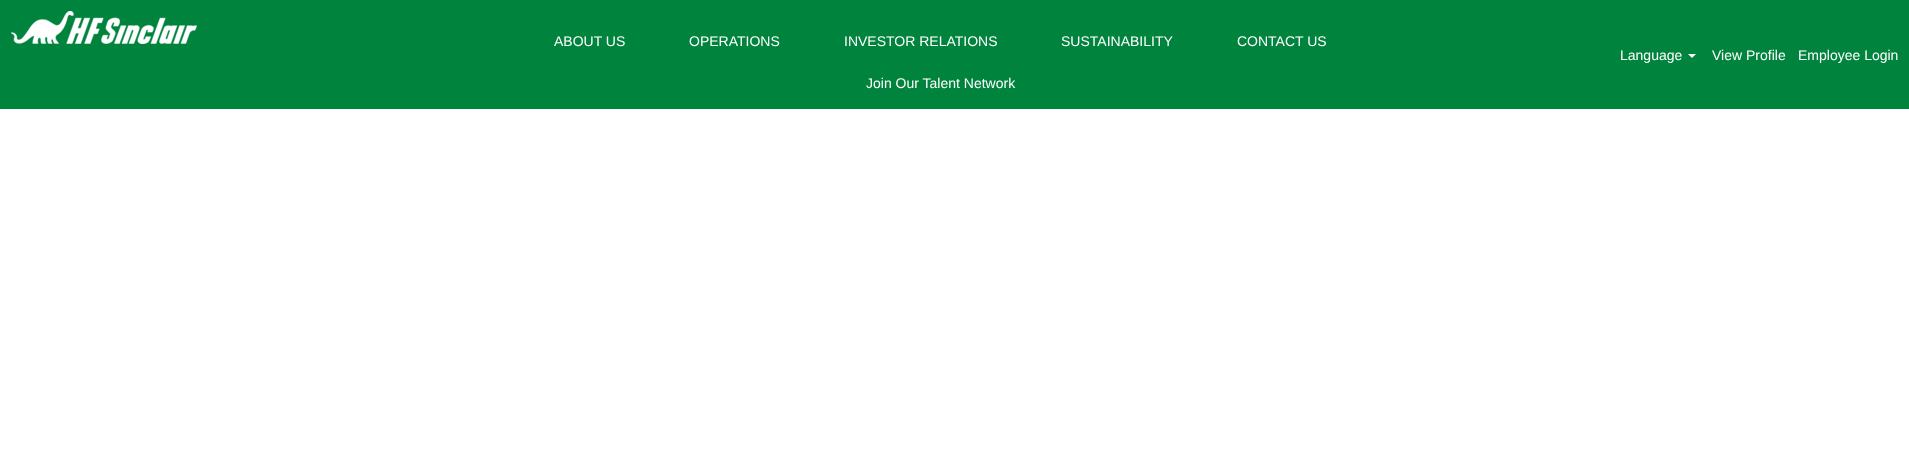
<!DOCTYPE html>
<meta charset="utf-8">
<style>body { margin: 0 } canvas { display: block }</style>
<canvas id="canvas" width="1909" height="467"></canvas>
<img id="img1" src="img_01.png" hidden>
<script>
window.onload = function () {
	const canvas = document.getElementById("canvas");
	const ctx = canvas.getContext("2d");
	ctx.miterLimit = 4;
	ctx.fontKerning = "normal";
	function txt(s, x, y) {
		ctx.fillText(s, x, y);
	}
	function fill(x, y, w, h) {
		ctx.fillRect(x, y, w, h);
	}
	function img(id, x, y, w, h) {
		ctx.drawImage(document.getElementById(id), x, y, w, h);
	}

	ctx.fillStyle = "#FFFFFF";
	fill(0, 0, 1909, 467);
	ctx.fillStyle = "#00843D";
	fill(0, 0, 1909, 109);
	img("img1", 11, 11, 186, 33);
	ctx.fillStyle = "#FFFFFF";
	ctx.beginPath();
	ctx.moveTo(1688, 54);
	ctx.lineTo(1696, 54);
	ctx.lineTo(1692, 58);
	ctx.closePath();
	ctx.fill();
	ctx.font = "14px Liberation Sans";
	txt("ABOUT US", 554, 46);
	txt("OPERATIONS", 689, 46);
	txt("INVESTOR RELATIONS", 844, 46);
	txt("SUSTAINABILITY", 1061, 46);
	txt("CONTACT US", 1237, 46);
	txt("Join Our Talent Network", 866, 88);
	txt("Language", 1620, 60);
	txt("View Profile", 1712, 60);
	txt("Employee Login", 1798, 60);
};
</script>
